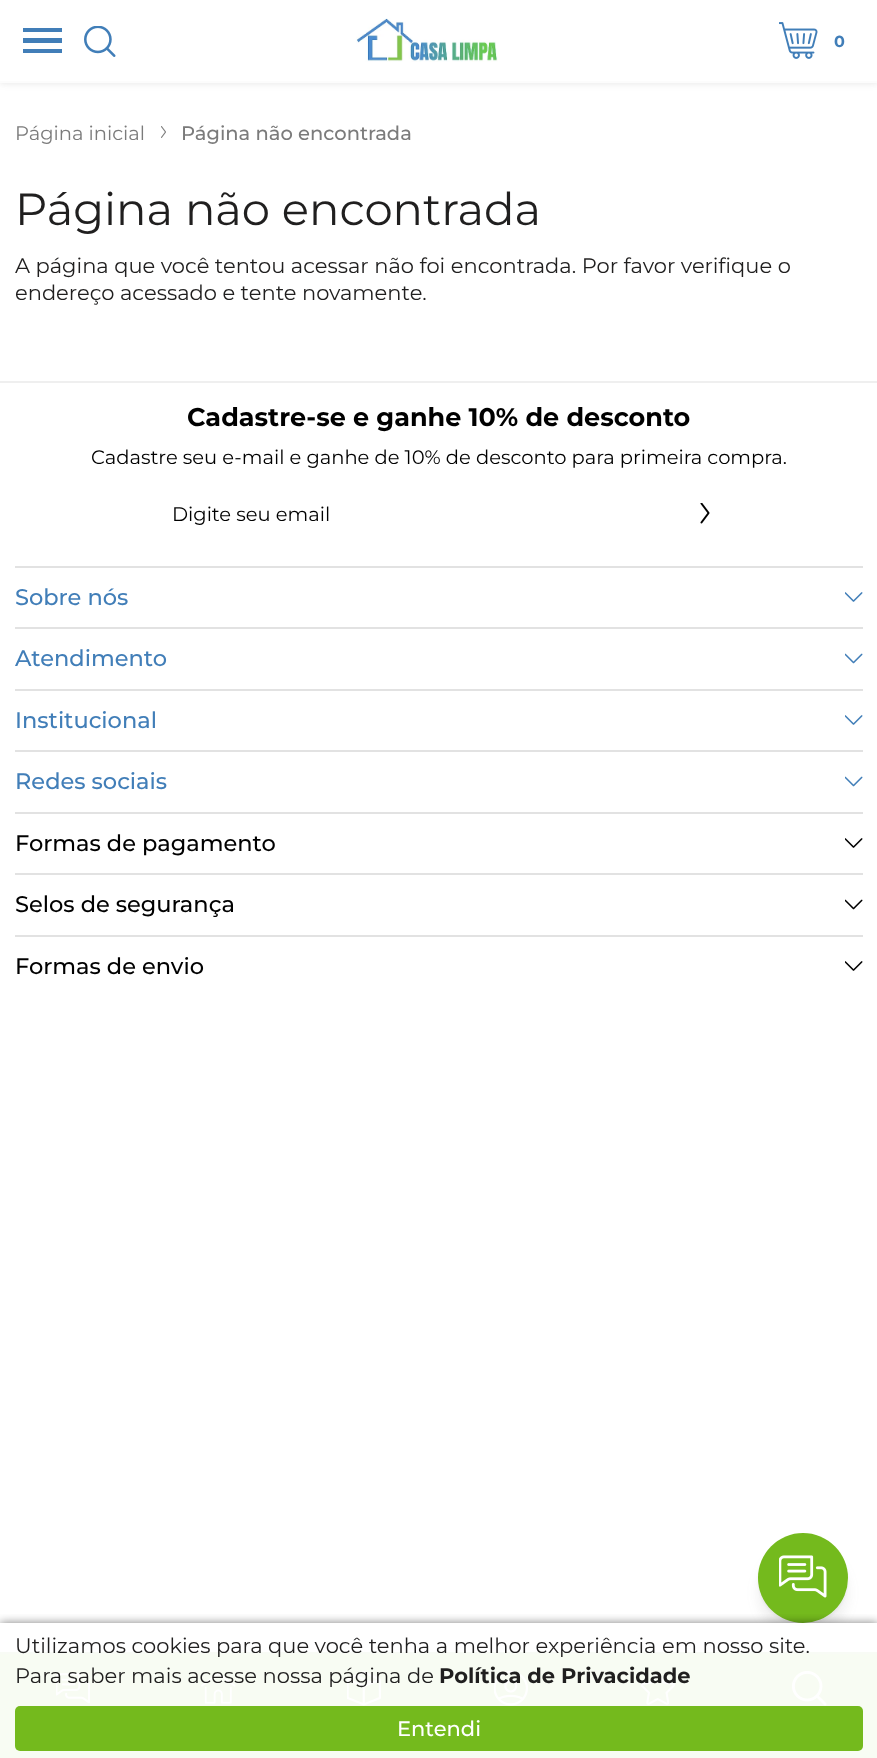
<!DOCTYPE html>
<meta charset="utf-8">
<style>body { margin: 0 } canvas { display: block }</style>
<canvas id="canvas" width="877" height="1758"></canvas>
<img id="img1" src="img_01.png" hidden>
<img id="img2" src="img_02.png" hidden>
<img id="img3" src="img_03.png" hidden>
<img id="img4" src="img_04.png" hidden>
<img id="img5" src="img_05.png" hidden>
<img id="img6" src="img_06.png" hidden>
<img id="img7" src="img_07.png" hidden>
<img id="img8" src="img_08.png" hidden>
<img id="img9" src="img_09.png" hidden>
<img id="img10" src="img_10.png" hidden>
<img id="img11" src="img_11.png" hidden>
<img id="img12" src="img_12.png" hidden>
<img id="img13" src="img_13.png" hidden>
<img id="img14" src="img_14.png" hidden>
<img id="img15" src="img_15.png" hidden>
<img id="img16" src="img_16.png" hidden>
<script>
window.onload = function () {
	const canvas = document.getElementById("canvas");
	const ctx = canvas.getContext("2d");
	ctx.miterLimit = 4;
	ctx.fontKerning = "normal";
	function txt(s, x, y) {
		ctx.fillText(s, x, y);
	}
	function fill(x, y, w, h) {
		ctx.fillRect(x, y, w, h);
	}
	function round(x, y, w, h, r) {
		ctx.beginPath();
		ctx.roundRect(x, y, w, h, r);
		ctx.fill();
	}
	function img(id, x, y, w, h) {
		ctx.drawImage(document.getElementById(id), x, y, w, h);
	}

	ctx.fillStyle = "#FFFFFF";
	fill(0, 0, 877, 1758);
	ctx.fillStyle = "rgba(82, 82, 82, 0.13)";
	ctx.filter = "blur(3px)";
	ctx.beginPath();
	ctx.rect(0, 2, 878, 82);
	ctx.fill();
	ctx.filter = "none";
	ctx.fillStyle = "#FFFFFF";
	fill(0, 0, 877, 81);
	ctx.fillStyle = "#FCFCFC";
	fill(0, 81, 877, 2);
	ctx.fillStyle = "#417EB8";
	fill(23, 49, 39, 4);
	fill(23, 38, 39, 5);
	fill(23, 28, 39, 4);
	img("img1", 84, 26, 32, 31);
	img("img2", 356, 18, 142, 44);
	img("img3", 779, 22, 39, 37);
	img("img4", 161, 126, 5, 12);
	ctx.fillStyle = "#EFEFEF";
	fill(0, 381, 877, 2);
	img("img5", 700, 503, 10, 21);
	ctx.fillStyle = "#E2E2E2";
	fill(15, 566, 848, 2);
	img("img6", 845, 592, 18, 10);
	fill(15, 627, 848, 2);
	img("img7", 845, 653, 18, 11);
	fill(15, 689, 848, 2);
	img("img6", 845, 715, 18, 10);
	fill(15, 750, 848, 2);
	img("img7", 845, 776, 18, 11);
	fill(15, 812, 848, 2);
	img("img8", 845, 838, 18, 10);
	fill(15, 873, 848, 2);
	img("img9", 845, 899, 18, 11);
	fill(15, 935, 848, 2);
	img("img8", 845, 961, 18, 10);
	ctx.fillStyle = "rgba(103, 103, 103, 0.1)";
	ctx.filter = "blur(6px)";
	ctx.beginPath();
	ctx.roundRect(758, 1548, 90, 90, 45);
	ctx.fill();
	ctx.filter = "none";
	ctx.fillStyle = "rgba(0, 0, 0, 0.04)";
	ctx.filter = "blur(1px)";
	ctx.beginPath();
	ctx.roundRect(758, 1536, 90, 90, 45);
	ctx.fill();
	ctx.filter = "none";
	ctx.fillStyle = "#74BA1D";
	ctx.beginPath();
	ctx.arc(803, 1578, 45, 0, Math.PI * 2);
	ctx.fill();
	img("img10", 779, 1555, 48, 43);
	ctx.fillStyle = "rgba(82, 82, 82, 0.08)";
	ctx.filter = "blur(3px)";
	ctx.beginPath();
	ctx.rect(0, 1652, 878, 106);
	ctx.fill();
	ctx.filter = "none";
	ctx.fillStyle = "#74BA1D";
	fill(0, 1654, 877, 104);
	ctx.fillStyle = "#7BAF3B";
	fill(0, 1652, 877, 2);
	img("img11", 56, 1673, 34, 31);
	img("img12", 201, 1672, 35, 32);
	img("img13", 347, 1671, 34, 35);
	img("img14", 494, 1671, 34, 35);
	img("img15", 641, 1671, 34, 34);
	img("img16", 792, 1671, 35, 35);
	ctx.save();
	ctx.beginPath();
	ctx.rect(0, 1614, 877, 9);
	ctx.clip();
	ctx.fillStyle = "rgba(0, 0, 0, 0.5)";
	ctx.filter = "blur(5px)";
	ctx.beginPath();
	ctx.rect(0, 1623, 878, 135);
	ctx.fill();
	ctx.filter = "none";
	ctx.restore();
	ctx.fillStyle = "rgba(255, 255, 255, 0.95)";
	fill(0, 1623, 877, 135);
	ctx.fillStyle = "#74BA1D";
	round(15, 1706, 848, 45, 5);
	ctx.font = "bold 16px Montserrat";
	ctx.fillStyle = "#417EB8";
	txt("0", 834, 47);
	ctx.font = "19.5px Montserrat";
	ctx.fillStyle = "#7B7B7B";
	txt("Página inicial", 15, 140);
	ctx.font = "500 19.5px Montserrat";
	txt("Página não encontrada", 181, 140);
	ctx.font = "45px Montserrat";
	ctx.fillStyle = "#201F1F";
	txt("Página não encontrada", 15, 225);
	ctx.font = "21px Montserrat";
	txt("A página que você tentou acessar não foi encontrada. Por favor verifique o", 15, 273);
	txt("endereço acessado e tente novamente.", 15, 300);
	ctx.font = "bold 25.5px Montserrat";
	ctx.fillStyle = "#000000";
	txt("Cadastre-se e ganhe 10% de desconto", 187, 426);
	ctx.font = "19.5px Montserrat";
	txt("Cadastre seu e-mail e ganhe de 10% de desconto para primeira compra.", 91, 464);
	txt("Digite seu email", 172, 521);
	ctx.font = "500 22.5px Montserrat";
	ctx.fillStyle = "#417EB8";
	txt("Sobre nós", 15, 605);
	txt("Atendimento", 15, 666);
	txt("Institucional", 15, 728);
	txt("Redes sociais", 15, 789);
	ctx.fillStyle = "#000000";
	txt("Formas de pagamento", 15, 851);
	txt("Selos de segurança", 15, 912);
	txt("Formas de envio", 15, 974);
	ctx.font = "21px Montserrat";
	ctx.fillStyle = "#201F1F";
	txt("Utilizamos cookies para que você tenha a melhor experiência em nosso site.", 15, 1653);
	txt("Para saber mais acesse nossa página de", 15, 1683);
	ctx.font = "bold 21px Montserrat";
	txt("Política de Privacidade", 439, 1683);
	ctx.font = "500 21px Montserrat";
	ctx.fillStyle = "#FFFFFF";
	txt("Entendi", 397, 1736);
};
</script>
